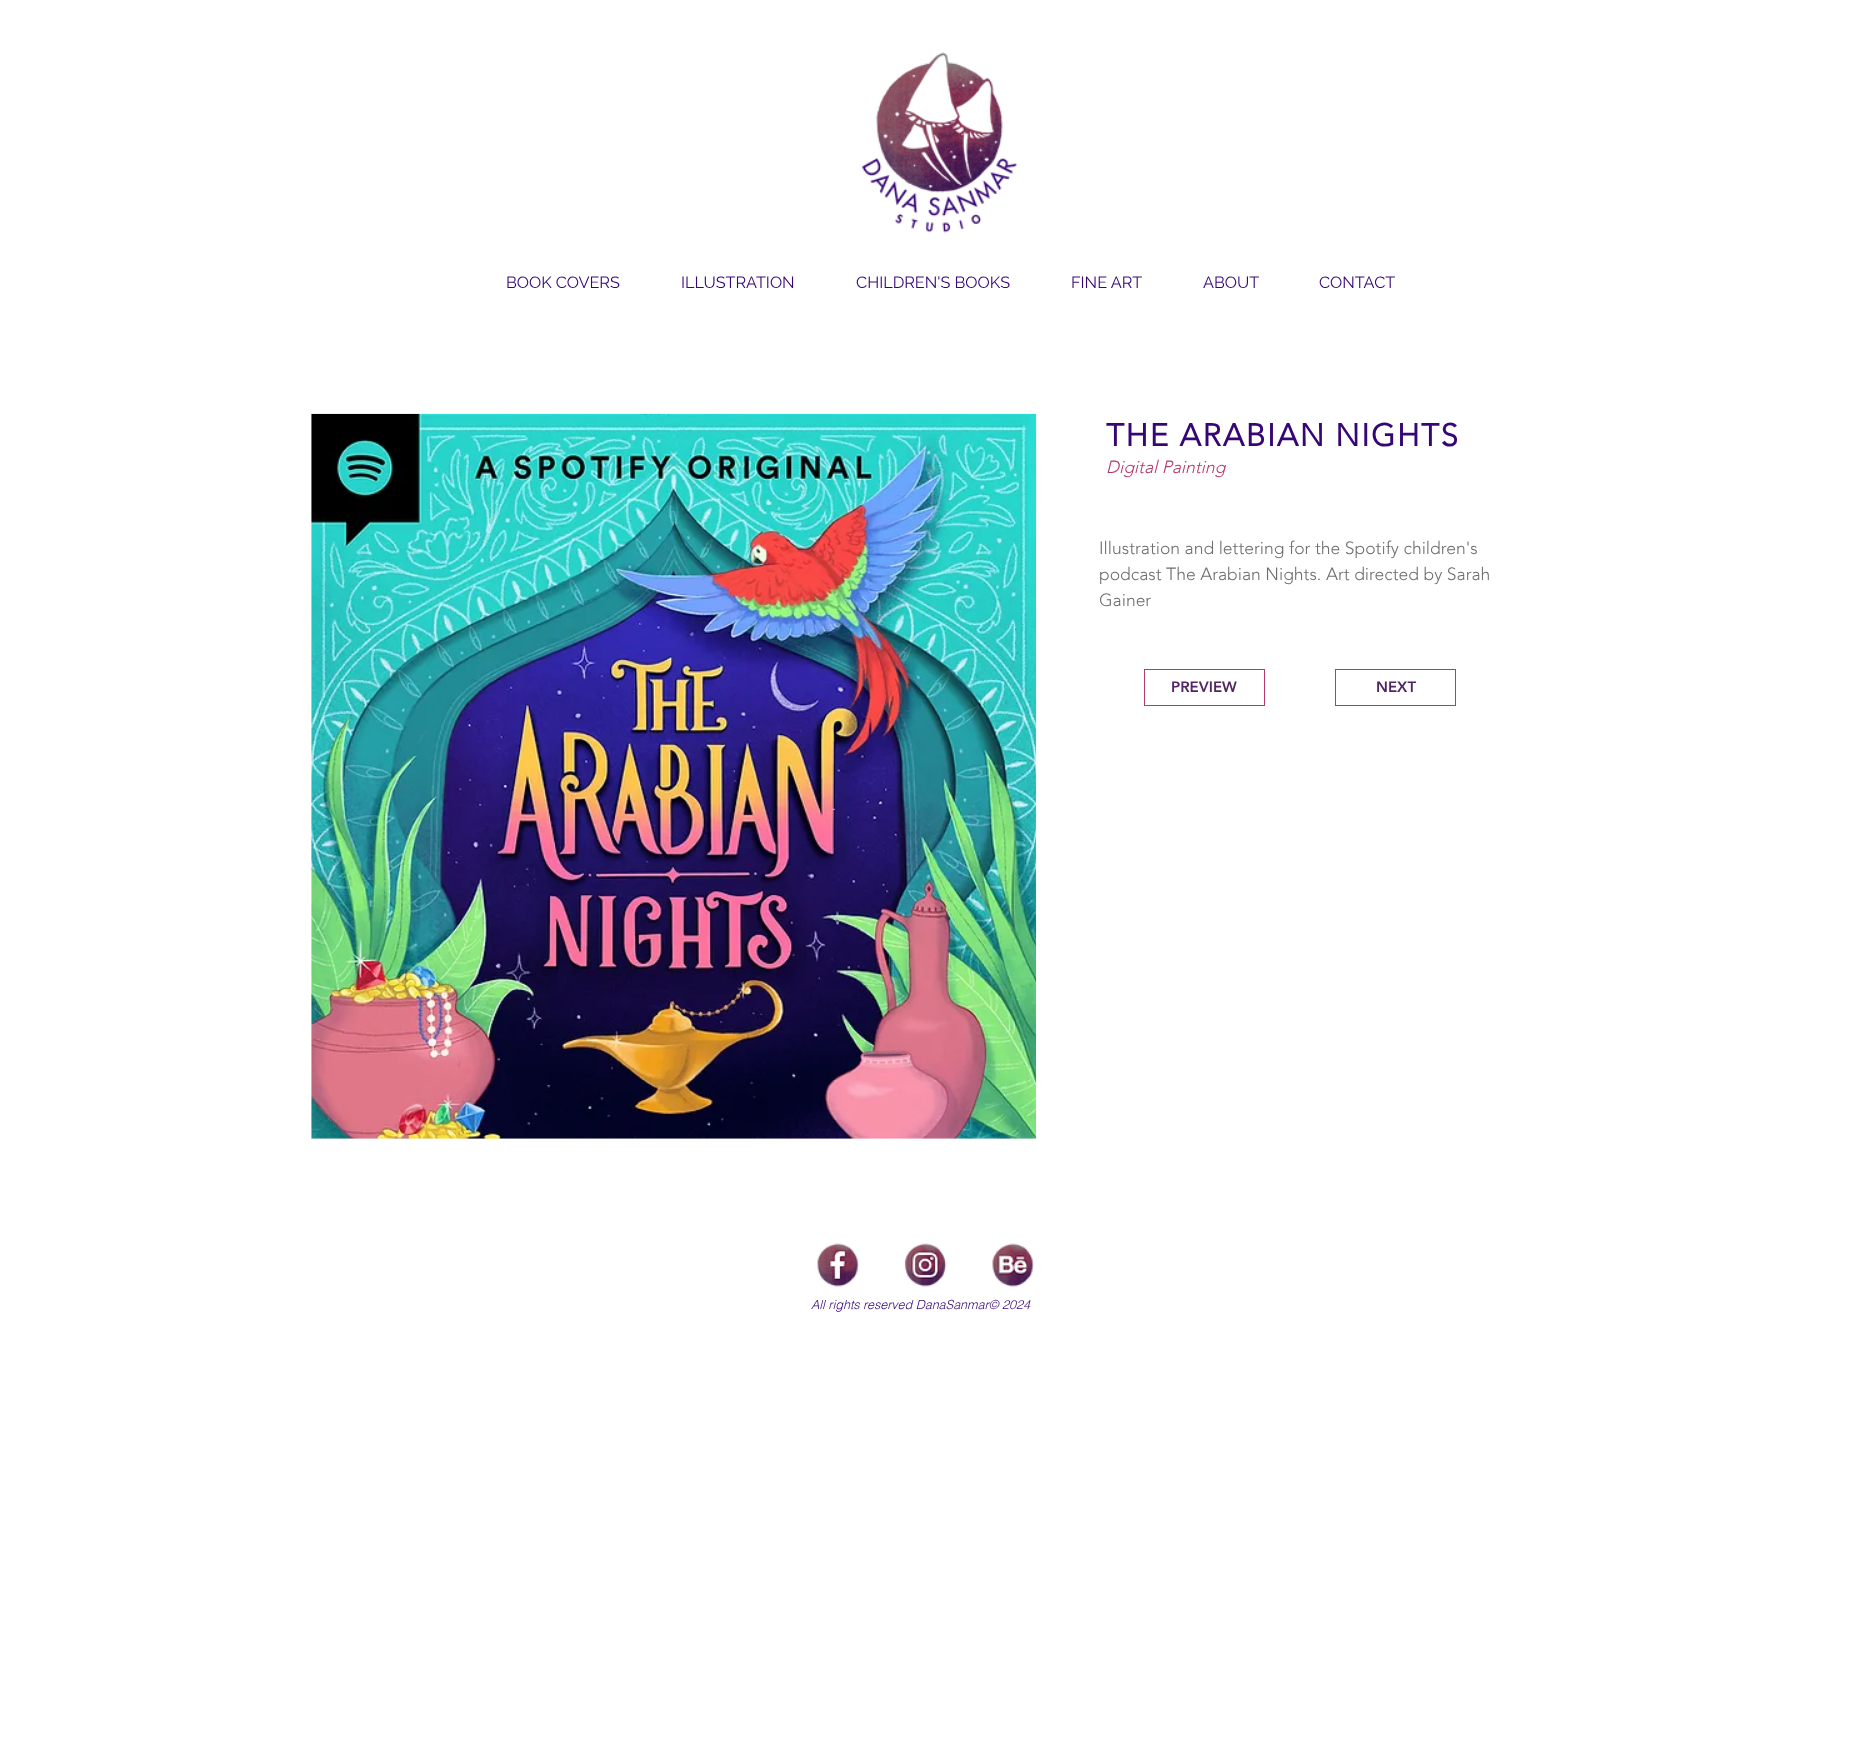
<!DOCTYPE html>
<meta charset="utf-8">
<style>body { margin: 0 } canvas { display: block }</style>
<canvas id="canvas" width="1850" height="1751"></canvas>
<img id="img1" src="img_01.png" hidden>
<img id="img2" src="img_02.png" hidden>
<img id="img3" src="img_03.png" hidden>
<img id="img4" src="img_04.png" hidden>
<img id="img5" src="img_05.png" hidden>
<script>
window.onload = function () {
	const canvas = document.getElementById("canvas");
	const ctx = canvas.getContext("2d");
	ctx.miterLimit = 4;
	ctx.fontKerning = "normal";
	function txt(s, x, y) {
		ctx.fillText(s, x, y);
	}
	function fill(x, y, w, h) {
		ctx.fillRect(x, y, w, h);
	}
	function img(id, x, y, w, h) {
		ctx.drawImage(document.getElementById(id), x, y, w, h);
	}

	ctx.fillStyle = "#FFFFFF";
	fill(0, 0, 1850, 1751);
	img("img1", 861, 52, 157, 181);
	img("img2", 311, 413, 726, 726);
	ctx.strokeStyle = "#B5396B";
	ctx.strokeRect(1144.5, 669.5, 120, 36);
	ctx.strokeRect(1335.5, 669.5, 120, 36);
	img("img3", 817, 1243, 42, 44);
	img("img4", 904, 1243, 43, 44);
	img("img5", 992, 1243, 42, 44);
	ctx.font = "16.25px Raleway";
	ctx.fillStyle = "#360675";
	txt("BOOK COVERS", 506, 288);
	txt("ILLUSTRATION", 681, 288);
	txt("CHILDREN'S BOOKS", 856, 288);
	txt("FINE ART", 1071, 288);
	txt("ABOUT", 1203, 288);
	txt("CONTACT", 1319, 288);
	ctx.letterSpacing = "1.6px";
	ctx.font = "bold 31.25px 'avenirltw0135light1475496'";
	txt("THE ARABIAN NIGHTS", 1106, 446);
	ctx.letterSpacing = "0px";
	ctx.font = "italic 300 17.5px 'avenirltw0135light1475496'";
	ctx.fillStyle = "#B5396B";
	txt("Digital Painting", 1106, 473);
	ctx.font = "300 17.5px 'avenirltw0135light1475496'";
	ctx.fillStyle = "#6E6E6E";
	txt("Illustration and lettering for the Spotify children's", 1099, 554);
	txt("podcast The Arabian Nights. Art directed by Sarah", 1099, 580);
	txt("Gainer", 1099, 606);
	ctx.font = "900 15px 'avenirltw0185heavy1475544'";
	ctx.fillStyle = "#532563";
	txt("PREVIEW", 1171, 692);
	txt("NEXT", 1376, 692);
	ctx.font = "italic 300 12.5px helvetica";
	ctx.fillStyle = "#360675";
	txt("All rights reserved DanaSanmar© 2024", 811, 1309);
};
</script>
